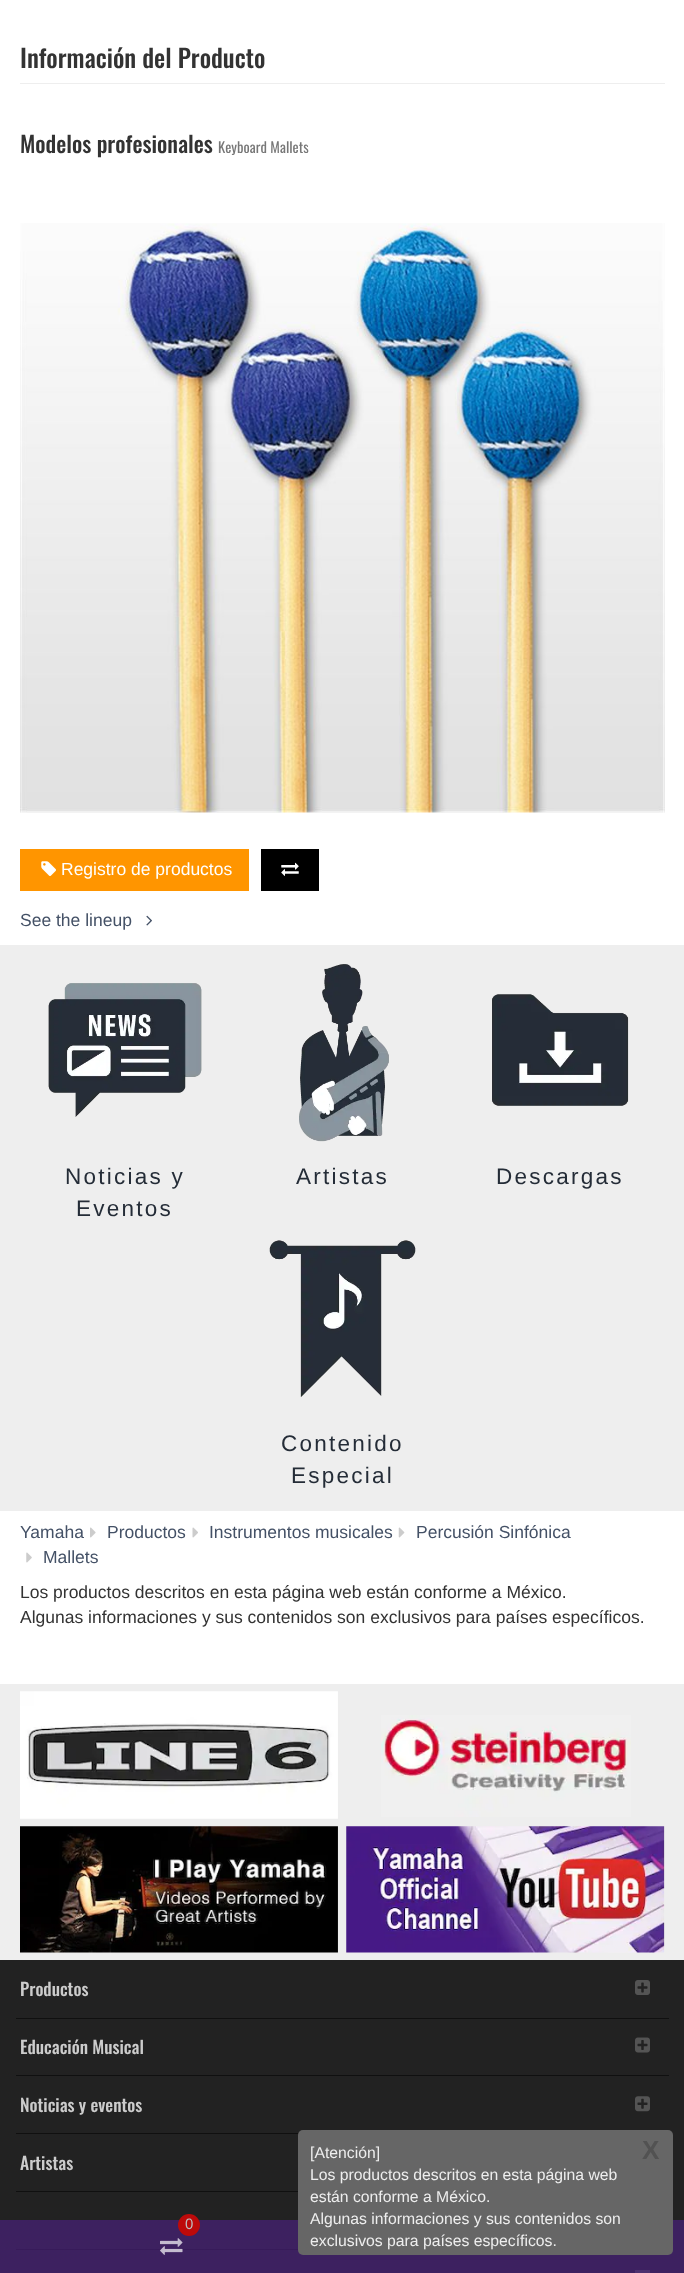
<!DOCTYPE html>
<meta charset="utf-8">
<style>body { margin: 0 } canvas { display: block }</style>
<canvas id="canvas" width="684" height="2273"></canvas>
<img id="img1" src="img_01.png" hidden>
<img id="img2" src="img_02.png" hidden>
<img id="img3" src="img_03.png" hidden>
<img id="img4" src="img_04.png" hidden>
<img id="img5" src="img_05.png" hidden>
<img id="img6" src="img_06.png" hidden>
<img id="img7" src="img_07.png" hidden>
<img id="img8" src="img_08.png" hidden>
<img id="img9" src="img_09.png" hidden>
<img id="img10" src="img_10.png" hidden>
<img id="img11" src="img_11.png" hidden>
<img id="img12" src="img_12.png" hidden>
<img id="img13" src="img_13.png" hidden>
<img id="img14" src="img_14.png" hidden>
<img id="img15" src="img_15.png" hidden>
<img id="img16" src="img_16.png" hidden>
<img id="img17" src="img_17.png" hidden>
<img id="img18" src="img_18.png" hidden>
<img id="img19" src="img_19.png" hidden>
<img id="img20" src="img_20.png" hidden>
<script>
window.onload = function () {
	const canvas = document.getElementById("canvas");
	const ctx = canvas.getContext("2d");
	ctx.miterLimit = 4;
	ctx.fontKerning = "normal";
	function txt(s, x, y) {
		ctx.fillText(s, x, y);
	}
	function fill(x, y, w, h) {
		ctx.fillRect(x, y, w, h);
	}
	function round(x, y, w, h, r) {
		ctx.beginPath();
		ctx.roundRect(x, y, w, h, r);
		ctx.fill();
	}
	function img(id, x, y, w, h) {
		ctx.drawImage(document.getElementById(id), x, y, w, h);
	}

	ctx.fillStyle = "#FFFFFF";
	fill(0, 0, 684, 2273);
	ctx.fillStyle = "#EEEEEE";
	fill(20, 83, 645, 1);
	img("img1", 20, 223, 645, 590);
	ctx.fillStyle = "#FF9500";
	fill(20, 849, 229, 42);
	img("img2", 41, 861, 15, 15);
	ctx.fillStyle = "#000000";
	fill(261, 849, 58, 42);
	img("img3", 281, 862, 18, 14);
	img("img4", 146, 915, 6, 11);
	ctx.fillStyle = "#EEEEEE";
	fill(0, 945, 684, 566);
	img("img5", 48, 983, 154, 134);
	img("img6", 299, 964, 90, 178);
	img("img7", 492, 994, 137, 112);
	img("img8", 269, 1240, 147, 157);
	img("img9", 90, 1527, 6, 11);
	img("img10", 192, 1527, 6, 11);
	img("img11", 398, 1527, 7, 11);
	img("img12", 26, 1552, 6, 11);
	ctx.fillStyle = "#222222";
	fill(0, 1960, 684, 313);
	ctx.fillStyle = "#EEEEEE";
	fill(0, 1684, 684, 276);
	img("img13", 20, 1691, 318, 128);
	img("img14", 381, 1715, 250, 102);
	img("img15", 20, 1826, 318, 127);
	img("img16", 346, 1826, 319, 127);
	ctx.fillStyle = "#101010";
	fill(16, 2018, 653, 1);
	img("img17", 635, 1980, 15, 15);
	fill(16, 2075, 653, 1);
	img("img18", 635, 2037, 15, 16);
	fill(16, 2133, 283, 1);
	img("img19", 635, 2096, 15, 16);
	fill(16, 2191, 282, 1);
	fill(16, 2249, 282, 1);
	ctx.fillStyle = "#545454";
	fill(635, 2270, 15, 3);
	ctx.fillStyle = "rgba(72, 33, 122, 0.7)";
	fill(0, 2220, 684, 53);
	ctx.fillStyle = "#666666";
	round(298, 2130, 375, 125, 5);
	ctx.fillStyle = "#BD0A0A";
	ctx.beginPath();
	ctx.arc(189, 2225, 11, 0, Math.PI * 2);
	ctx.fill();
	img("img20", 160, 2238, 23, 17);
	ctx.font = "500 25px Oswald";
	ctx.fillStyle = "#333333";
	txt("Información del Producto", 20, 68);
	ctx.font = "500 22.5px Oswald";
	txt("Modelos profesionales", 20, 153);
	ctx.font = "14.5px Oswald";
	ctx.fillStyle = "#777777";
	txt("Keyboard Mallets", 218, 153);
	ctx.font = "17.5px Liberation Sans";
	ctx.fillStyle = "#FFFFFF";
	txt("Registro de productos", 61, 875);
	ctx.fillStyle = "#445166";
	txt("See the lineup", 20, 926);
	ctx.letterSpacing = "2.25px";
	ctx.font = "22.5px Liberation Sans";
	ctx.fillStyle = "#242C37";
	txt("Noticias y", 65, 1184);
	txt("Eventos", 76, 1216);
	txt("Artistas", 296, 1184);
	txt("Descargas", 496, 1184);
	txt("Contenido", 281, 1451);
	txt("Especial", 291, 1483);
	ctx.letterSpacing = "0px";
	ctx.font = "17.5px Liberation Sans";
	ctx.fillStyle = "#445166";
	txt("Yamaha", 20, 1538);
	txt("Productos", 107, 1538);
	txt("Instrumentos musicales", 209, 1538);
	txt("Percusión Sinfónica", 416, 1538);
	txt("Mallets", 43, 1563);
	ctx.fillStyle = "#333333";
	txt("Los productos descritos en esta página web están conforme a México.", 20, 1598);
	txt("Algunas informaciones y sus contenidos son exclusivos para países específicos.", 20, 1623);
	ctx.font = "500 17.5px Oswald";
	ctx.fillStyle = "#CCCCCC";
	txt("Productos", 20, 1996);
	txt("Educación Musical", 20, 2054);
	txt("Noticias y eventos", 20, 2112);
	txt("Artistas", 20, 2170);
	ctx.font = "15.75px Liberation Sans";
	ctx.fillStyle = "#EEEEEE";
	txt("[Atención]", 310, 2158);
	txt("Los productos descritos en esta página web", 310, 2180);
	txt("están conforme a México.", 310, 2202);
	txt("Algunas informaciones y sus contenidos son", 310, 2224);
	txt("exclusivos para países específicos.", 310, 2246);
	ctx.font = "bold 26px Liberation Sans";
	ctx.fillStyle = "#525252";
	txt("X", 642, 2159);
	ctx.font = "15px Liberation Sans";
	ctx.fillStyle = "#BDBDBD";
	txt("0", 185, 2229);
};
</script>
